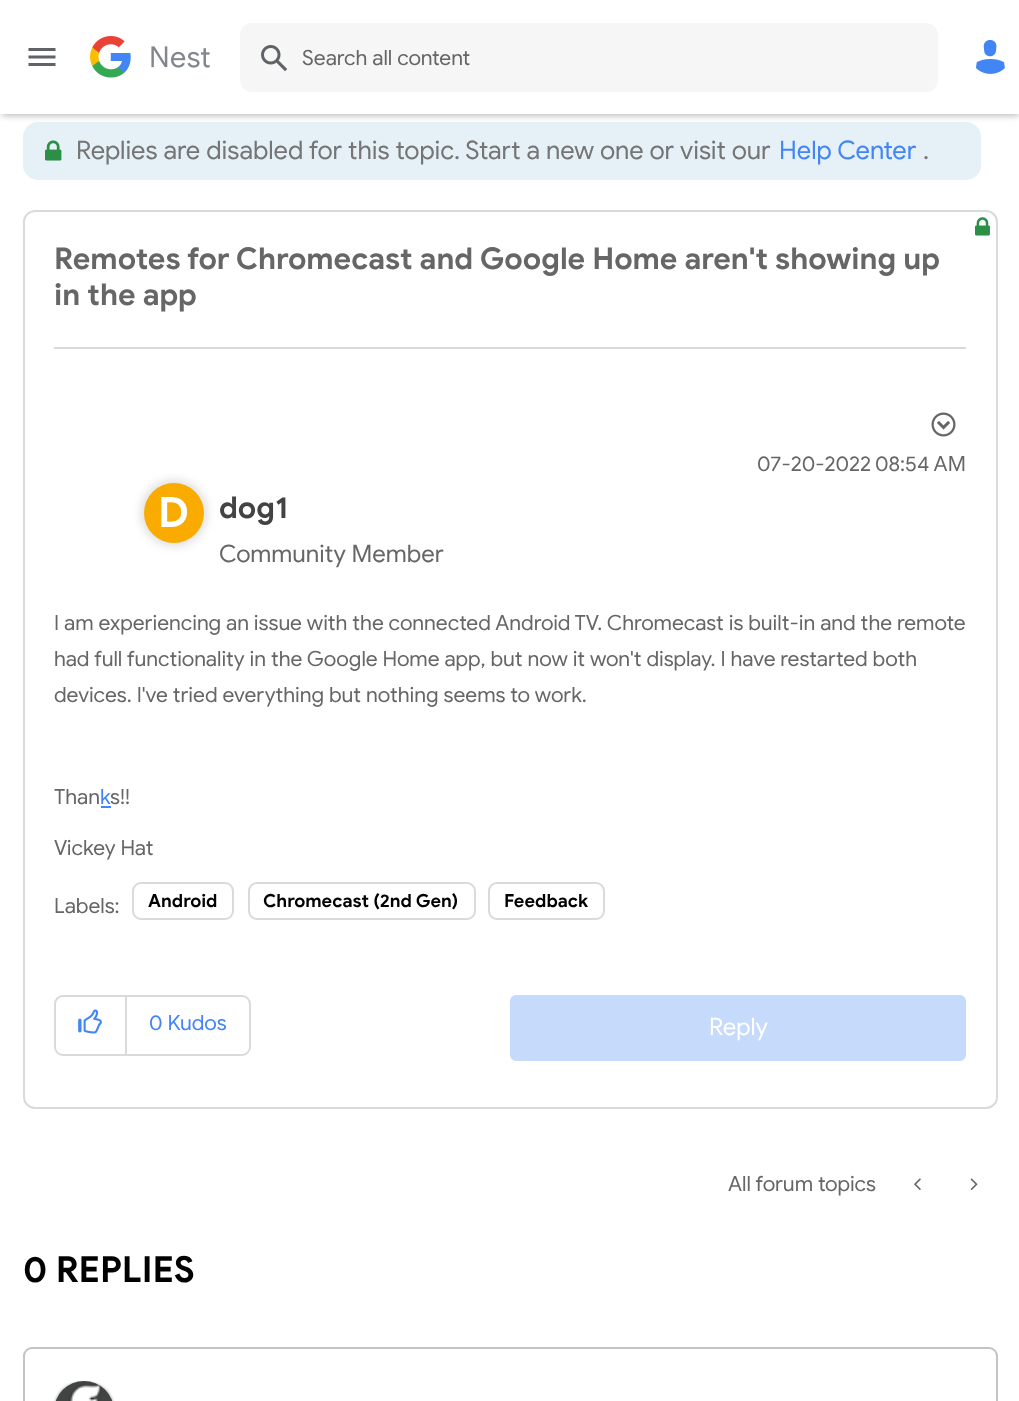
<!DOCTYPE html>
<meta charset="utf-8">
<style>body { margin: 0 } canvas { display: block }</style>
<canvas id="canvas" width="1019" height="1401"></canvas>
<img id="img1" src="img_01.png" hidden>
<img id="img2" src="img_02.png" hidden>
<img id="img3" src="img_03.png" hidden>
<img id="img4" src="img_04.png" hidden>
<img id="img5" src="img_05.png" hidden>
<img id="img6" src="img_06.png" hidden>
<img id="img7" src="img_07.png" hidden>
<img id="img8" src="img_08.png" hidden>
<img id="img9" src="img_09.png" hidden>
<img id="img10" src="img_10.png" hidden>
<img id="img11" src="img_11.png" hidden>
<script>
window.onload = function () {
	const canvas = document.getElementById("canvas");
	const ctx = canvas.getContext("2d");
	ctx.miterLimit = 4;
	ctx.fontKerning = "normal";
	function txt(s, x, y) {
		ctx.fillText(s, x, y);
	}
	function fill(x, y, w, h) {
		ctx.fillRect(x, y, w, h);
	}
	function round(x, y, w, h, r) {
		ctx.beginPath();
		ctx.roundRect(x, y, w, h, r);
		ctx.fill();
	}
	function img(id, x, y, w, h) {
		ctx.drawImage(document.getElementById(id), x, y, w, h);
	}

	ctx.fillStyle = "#FFFFFF";
	fill(0, 0, 1019, 1401);
	ctx.fillStyle = "#E5F0F7";
	round(23, 122, 958, 58, 15);
	ctx.fillStyle = "rgba(0, 0, 0, 0.25)";
	ctx.filter = "blur(3px)";
	ctx.beginPath();
	ctx.rect(2, 5, 1017, 111);
	ctx.fill();
	ctx.filter = "none";
	ctx.fillStyle = "#FFFFFF";
	fill(0, 0, 1019, 114);
	img("img1", 28, 48, 28, 18);
	img("img2", 90, 36, 120, 42);
	ctx.fillStyle = "#F6F6F6";
	round(240, 23, 698, 69, 12);
	img("img3", 261, 45, 27, 27);
	img("img4", 975, 39, 30, 35);
	img("img5", 45, 140, 17, 21);
	ctx.beginPath();
	ctx.roundRect(24, 211, 973, 897, 11);
	ctx.strokeStyle = "#DADADA";
	ctx.lineWidth = 2;
	ctx.stroke();
	img("img6", 975, 217, 15, 19);
	ctx.fillStyle = "#DADADA";
	fill(54, 347, 912, 2);
	img("img7", 931, 412, 25, 25);
	ctx.fillStyle = "#DDDDDD";
	ctx.filter = "blur(5px)";
	ctx.beginPath();
	ctx.roundRect(141, 480, 66, 66, 33);
	ctx.fill();
	ctx.filter = "none";
	ctx.fillStyle = "#F9AB00";
	ctx.beginPath();
	ctx.arc(174, 513, 30, 0, Math.PI * 2);
	ctx.fill();
	ctx.fillStyle = "#4285F4";
	fill(101, 806, 10, 2);
	ctx.beginPath();
	ctx.roundRect(133, 883, 100, 36, 8);
	ctx.stroke();
	ctx.beginPath();
	ctx.roundRect(249, 883, 226, 36, 8);
	ctx.stroke();
	ctx.beginPath();
	ctx.roundRect(489, 883, 115, 36, 8);
	ctx.stroke();
	ctx.beginPath();
	ctx.roundRect(55, 996, 195, 59, 8);
	ctx.stroke();
	ctx.fillStyle = "#DADADA";
	fill(125, 996, 2, 59);
	img("img8", 78, 1009, 24, 25);
	ctx.fillStyle = "#C6DAFC";
	ctx.beginPath();
	ctx.roundRect(511.5, 996.5, 453, 63, 4.5);
	ctx.fill();
	ctx.strokeStyle = "#C6DAFC";
	ctx.lineWidth = 3;
	ctx.stroke();
	img("img9", 914, 1178, 7, 12);
	img("img10", 970, 1178, 8, 12);
	ctx.beginPath();
	ctx.roundRect(24, 1348, 973, 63, 8);
	ctx.strokeStyle = "#C4C4C4";
	ctx.lineWidth = 2;
	ctx.stroke();
	ctx.fillStyle = "#C4C4C4";
	ctx.filter = "blur(1px)";
	ctx.beginPath();
	ctx.roundRect(54, 1382, 60, 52, 30);
	ctx.fill();
	ctx.filter = "none";
	img("img11", 55, 1381, 58, 20);
	ctx.font = "21px Google Sans";
	ctx.fillStyle = "#666666";
	txt("Search all content", 302, 65);
	ctx.font = "25.5px Google Sans";
	ctx.fillStyle = "#757575";
	txt("Replies are disabled for this topic. Start a new one or visit our", 76, 159);
	ctx.fillStyle = "#4285F4";
	txt("Help Center", 779, 159);
	ctx.fillStyle = "#757575";
	txt(".", 923, 159);
	ctx.font = "bold 30px Google Sans";
	ctx.fillStyle = "#666666";
	txt("Remotes for Chromecast and Google Home aren't showing up", 54, 269);
	txt("in the app", 54, 305);
	ctx.font = "21px Google Sans";
	txt("07-20-2022", 757, 471);
	txt("08:54 AM", 875, 471);
	ctx.font = "bold 42px Google Sans";
	ctx.fillStyle = "#FFFFFF";
	txt("D", 158, 527);
	ctx.font = "bold 30px Google Sans";
	ctx.fillStyle = "#434343";
	txt("dog1", 219, 518);
	ctx.font = "24px Google Sans";
	ctx.fillStyle = "#666666";
	txt("Community Member", 219, 562);
	ctx.font = "21px Google Sans";
	txt("I am experiencing an issue with the connected Android TV. Chromecast is built-in and the remote", 54, 630);
	txt("had full functionality in the Google Home app, but now it won't display. I have restarted both", 54, 666);
	txt("devices. I've tried everything but nothing seems to work.", 54, 702);
	txt("Than", 54, 804);
	ctx.fillStyle = "#4285F4";
	txt("k", 100, 804);
	ctx.fillStyle = "#666666";
	txt("s!!", 110, 804);
	txt("Vickey Hat", 54, 855);
	txt("Labels:", 54, 913);
	ctx.font = "bold 18px Google Sans";
	ctx.fillStyle = "#000000";
	txt("Android", 148, 907);
	txt("Chromecast (2nd Gen)", 263, 907);
	txt("Feedback", 504, 907);
	ctx.font = "21px Google Sans";
	ctx.fillStyle = "#4285F4";
	txt("0 Kudos", 149, 1030);
	ctx.font = "24px Google Sans";
	ctx.fillStyle = "#FFFFFF";
	txt("Reply", 709, 1035);
	ctx.font = "21px Google Sans";
	ctx.fillStyle = "#666666";
	txt("All forum topics", 728, 1191);
	ctx.font = "bold 36px Google Sans";
	ctx.fillStyle = "#000000";
	txt("0 REPLIES", 23, 1282);
};
</script>
